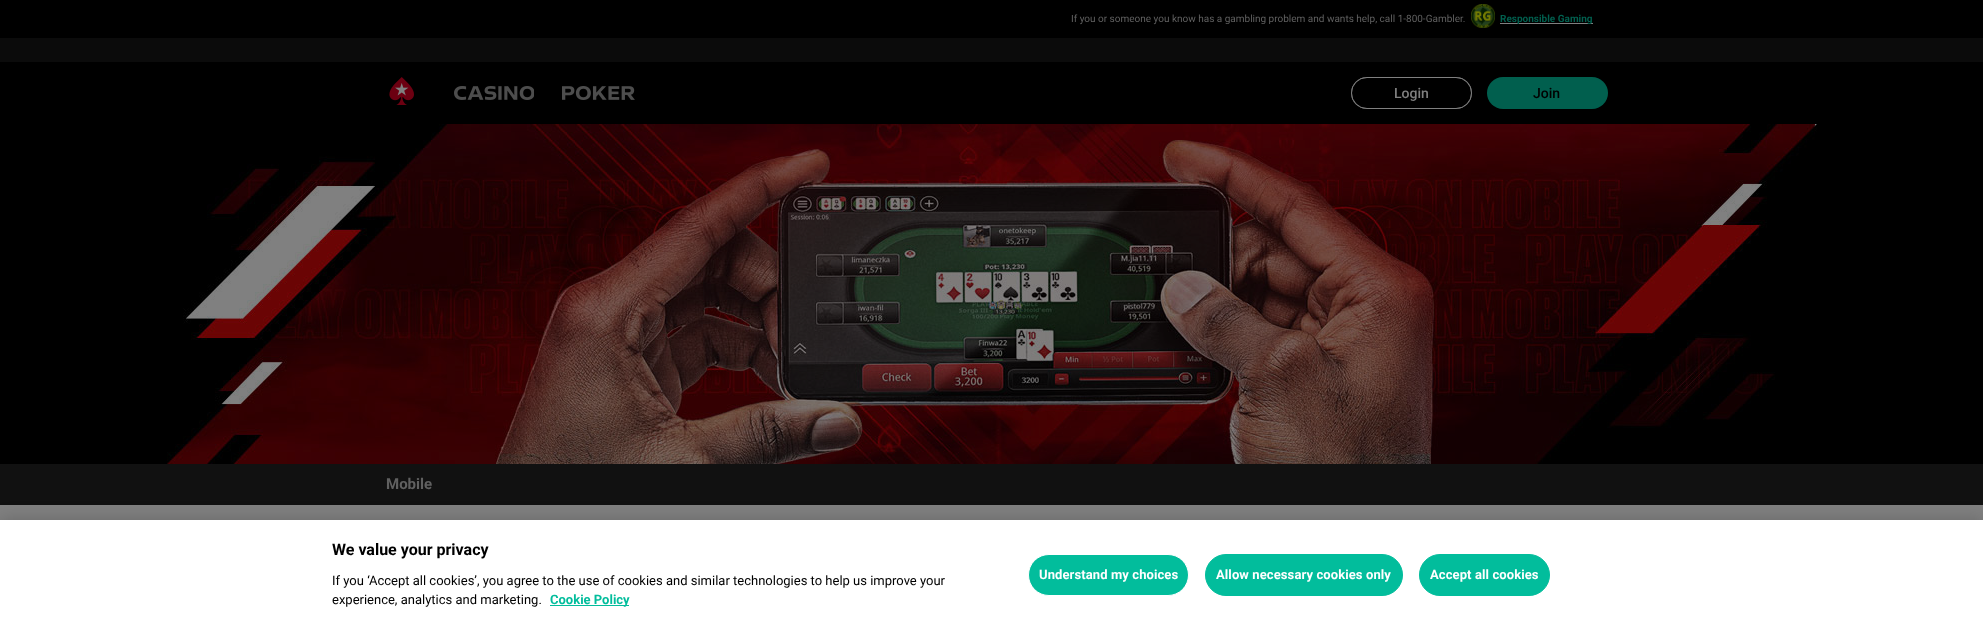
<!DOCTYPE html>
<meta charset="utf-8">
<style>body { margin: 0 } canvas { display: block }</style>
<canvas id="canvas" width="1983" height="630"></canvas>
<img id="img1" src="img_01.png" hidden>
<img id="img2" src="img_02.png" hidden>
<img id="img3" src="img_03.png" hidden>
<img id="img4" src="img_04.png" hidden>
<img id="img5" src="img_05.png" hidden>
<script>
window.onload = function () {
	const canvas = document.getElementById("canvas");
	const ctx = canvas.getContext("2d");
	ctx.miterLimit = 4;
	ctx.fontKerning = "normal";
	function txt(s, x, y) {
		ctx.fillText(s, x, y);
	}
	function fill(x, y, w, h) {
		ctx.fillRect(x, y, w, h);
	}
	function round(x, y, w, h, r) {
		ctx.beginPath();
		ctx.roundRect(x, y, w, h, r);
		ctx.fill();
	}
	function img(id, x, y, w, h) {
		ctx.drawImage(document.getElementById(id), x, y, w, h);
	}

	ctx.fillStyle = "#000000";
	fill(0, 0, 1983, 630);
	img("img1", 1471, 4, 24, 24);
	ctx.fillStyle = "#808080";
	fill(1500, 23, 93, 1);
	ctx.fillStyle = "#0B0B0B";
	fill(0, 38, 1983, 24);
	img("img2", 389, 77, 25, 28);
	img("img3", 454, 86, 80, 14);
	img("img4", 562, 86, 73, 14);
	ctx.fillStyle = "#808080";
	ctx.filter = "blur(0.5px)";
	ctx.beginPath();
	ctx.roundRect(1351, 77, 121, 32, 16);
	ctx.fill();
	ctx.filter = "none";
	ctx.fillStyle = "#000000";
	ctx.beginPath();
	ctx.roundRect(1351.5, 77.5, 120, 31, 15.5);
	ctx.fill();
	ctx.strokeStyle = "#808080";
	ctx.stroke();
	ctx.fillStyle = "#015F4E";
	round(1487, 77, 121, 32, 16);
	ctx.fillStyle = "#808080";
	fill(0, 505, 1983, 15);
	img("img5", 167, 124, 1650, 340);
	ctx.fillStyle = "#111111";
	fill(0, 464, 1983, 41);
	ctx.fillStyle = "rgba(0, 0, 0, 0.2)";
	ctx.filter = "blur(9px)";
	ctx.beginPath();
	ctx.rect(0, 520, 1983, 110);
	ctx.fill();
	ctx.filter = "none";
	ctx.fillStyle = "#FFFFFF";
	fill(0, 520, 1983, 110);
	ctx.fillStyle = "#02BD9C";
	fill(550, 605, 79, 1);
	ctx.beginPath();
	ctx.roundRect(1028.5, 554.5, 160, 41, 20.5);
	ctx.fill();
	ctx.strokeStyle = "#FFFFFF";
	ctx.stroke();
	ctx.beginPath();
	ctx.roundRect(1205.5, 554.5, 197, 41, 20.5);
	ctx.fill();
	ctx.strokeStyle = "#02BD9C";
	ctx.stroke();
	ctx.beginPath();
	ctx.roundRect(1419.5, 554.5, 130, 41, 20.5);
	ctx.fill();
	ctx.stroke();
	ctx.font = "10px Roboto";
	ctx.fillStyle = "#606060";
	txt("If you or someone you know has a gambling problem and wants help, call 1-800-Gambler.", 1071, 22);
	ctx.font = "bold 10px Roboto";
	ctx.fillStyle = "#015F4E";
	txt("Responsible Gaming", 1500, 22);
	ctx.font = "500 14px Roboto";
	ctx.fillStyle = "#808080";
	txt("Login", 1394, 98);
	ctx.fillStyle = "#000000";
	txt("Join", 1533, 98);
	ctx.font = "bold 15px Roboto";
	ctx.fillStyle = "#606060";
	txt("Mobile", 386, 489);
	ctx.font = "bold 16px Roboto";
	ctx.fillStyle = "#000000";
	txt("We value your privacy", 332, 555);
	ctx.font = "13px Roboto";
	txt("If you ‘Accept all cookies’, you agree to the use of cookies and similar technologies to help us improve your", 332, 585);
	txt("experience, analytics and marketing.", 332, 604);
	ctx.font = "bold 13px Roboto";
	ctx.fillStyle = "#02BD9C";
	txt("Cookie Policy", 550, 604);
	ctx.letterSpacing = "0.1px";
	ctx.fillStyle = "#FFFFFF";
	txt("Understand my choices", 1039, 579);
	txt("Allow necessary cookies only", 1216, 579);
	txt("Accept all cookies", 1430, 579);
};
</script>
